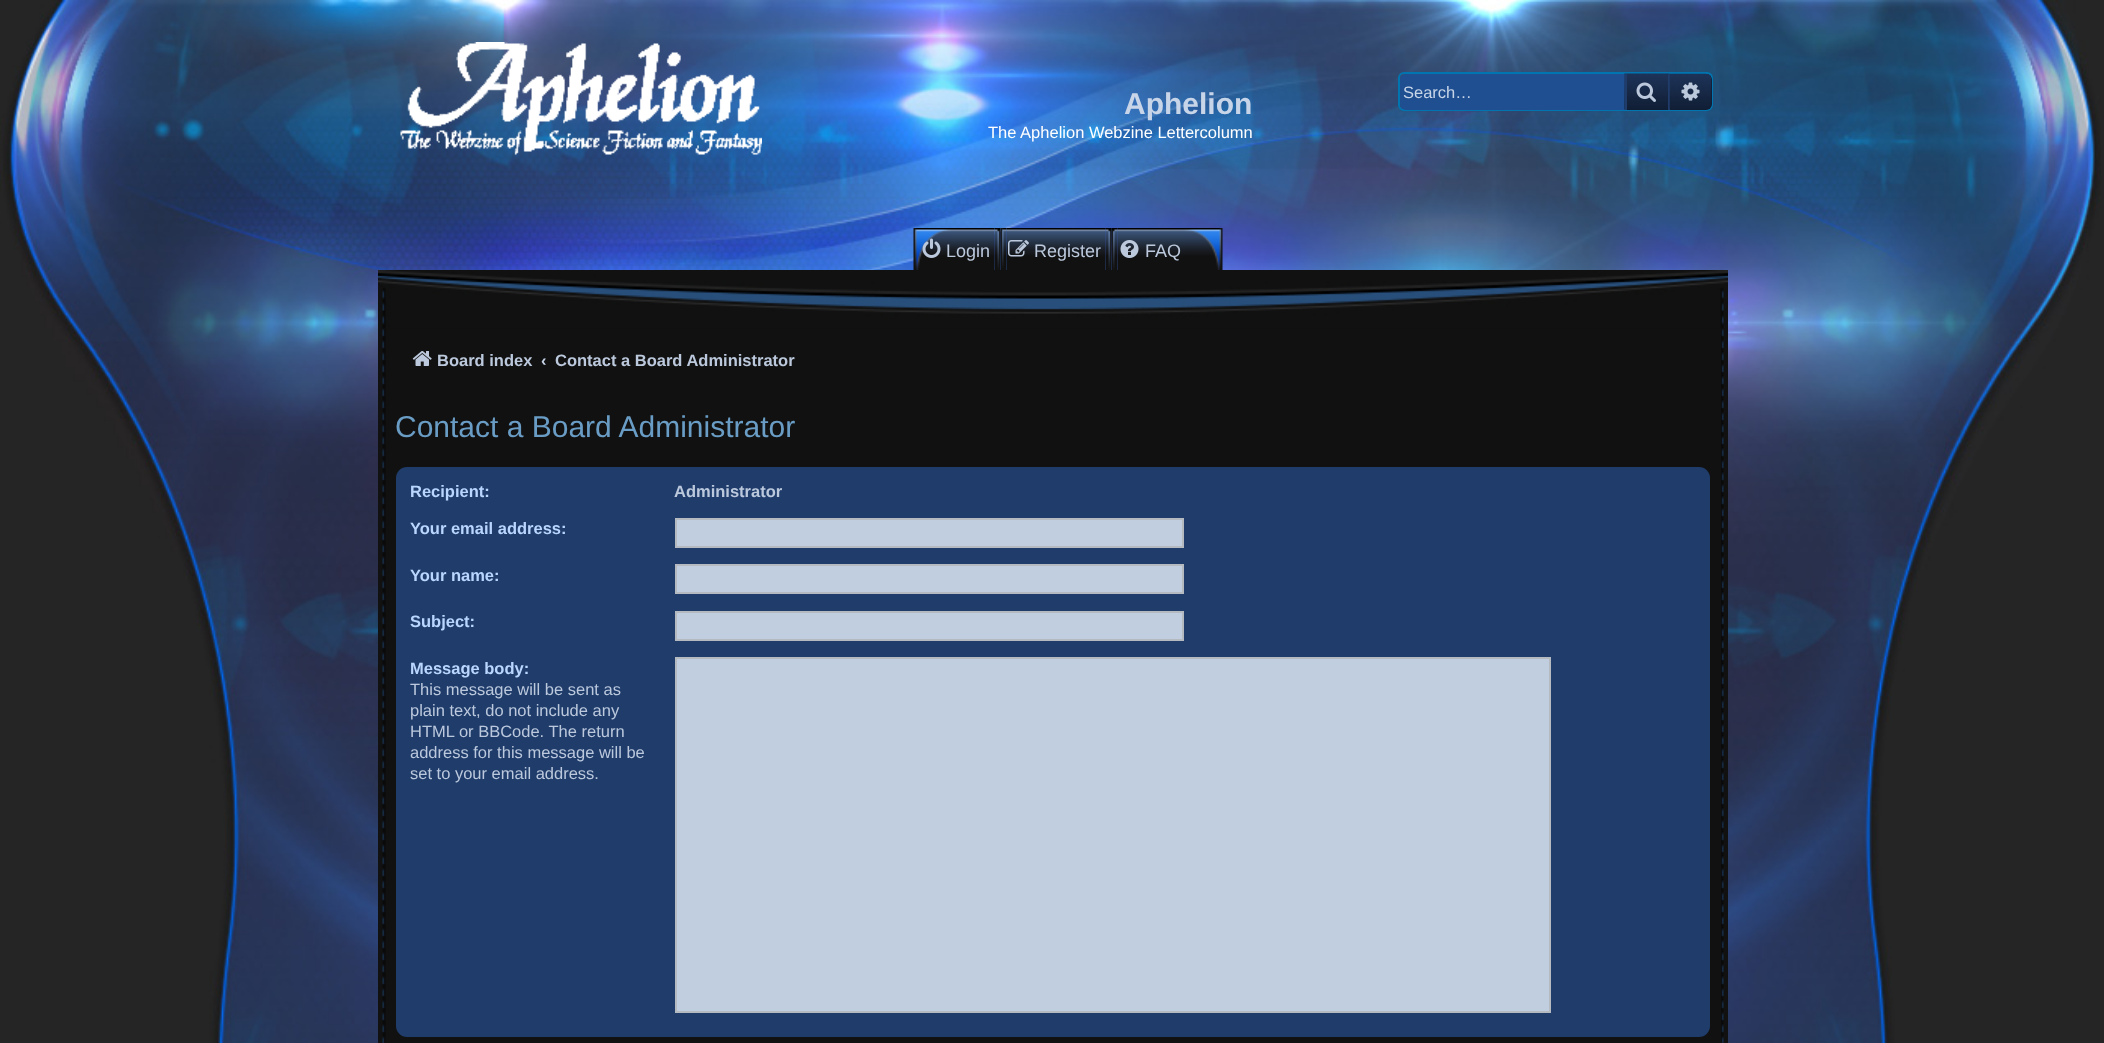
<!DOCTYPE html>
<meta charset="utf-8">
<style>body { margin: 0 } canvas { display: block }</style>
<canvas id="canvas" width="2104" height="1043"></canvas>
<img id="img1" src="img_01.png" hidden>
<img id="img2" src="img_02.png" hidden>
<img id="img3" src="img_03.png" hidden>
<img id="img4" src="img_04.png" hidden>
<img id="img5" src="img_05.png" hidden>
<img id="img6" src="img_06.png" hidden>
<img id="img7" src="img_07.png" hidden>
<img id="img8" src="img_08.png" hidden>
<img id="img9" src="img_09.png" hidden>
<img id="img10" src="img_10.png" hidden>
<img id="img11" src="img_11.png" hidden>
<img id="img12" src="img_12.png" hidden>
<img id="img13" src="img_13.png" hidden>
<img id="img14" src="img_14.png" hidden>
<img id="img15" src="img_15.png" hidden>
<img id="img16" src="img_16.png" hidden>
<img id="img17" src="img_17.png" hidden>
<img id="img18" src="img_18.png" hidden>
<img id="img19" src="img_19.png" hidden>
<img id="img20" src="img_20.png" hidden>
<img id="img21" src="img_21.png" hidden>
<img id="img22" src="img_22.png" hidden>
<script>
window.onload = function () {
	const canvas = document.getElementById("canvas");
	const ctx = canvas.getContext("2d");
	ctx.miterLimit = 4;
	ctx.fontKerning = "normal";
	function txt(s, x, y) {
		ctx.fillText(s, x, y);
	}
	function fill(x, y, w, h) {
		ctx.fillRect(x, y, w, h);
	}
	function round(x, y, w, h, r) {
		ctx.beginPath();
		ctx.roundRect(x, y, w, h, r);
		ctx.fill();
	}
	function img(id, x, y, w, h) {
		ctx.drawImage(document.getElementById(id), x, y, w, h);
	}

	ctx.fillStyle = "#252525";
	fill(0, 0, 2104, 1043);
	img("img1", 0, 0, 2101, 1043);
	img("img2", 400, 42, 362, 113);
	ctx.beginPath();
	ctx.roundRect(1399, 73, 313, 37, 5);
	ctx.strokeStyle = "#0075B0";
	ctx.lineWidth = 2;
	ctx.stroke();
	ctx.fillStyle = "#1F4F90";
	ctx.beginPath();
	ctx.roundRect(1400, 74, 225, 36, [6, 0, 0, 6]);
	ctx.fill();
	ctx.fillStyle = "#101D33";
	fill(1627, 109, 41, 1);
	img("img3", 1624, 73, 46, 37);
	ctx.fillStyle = "#1F3C6B";
	fill(1668, 74, 2, 36);
	fill(1625, 74, 2, 36);
	img("img4", 1636, 82, 20, 20);
	ctx.fillStyle = "#101D33";
	ctx.beginPath();
	ctx.roundRect(1670, 74, 42, 36, [0, 6, 6, 0]);
	ctx.fill();
	img("img5", 1669, 73, 43, 36);
	img("img6", 1681, 82, 19, 19);
	img("img7", 951, 228, 44, 42);
	img("img8", 913, 228, 38, 42);
	img("img9", 922, 238, 19, 20);
	img("img10", 994, 228, 7, 42);
	img("img11", 1006, 228, 100, 42);
	img("img12", 1000, 228, 7, 42);
	img("img13", 1008, 240, 21, 17);
	img("img14", 1105, 228, 7, 42);
	img("img15", 1117, 228, 68, 42);
	img("img16", 1111, 228, 7, 42);
	img("img17", 1120, 240, 19, 18);
	img("img18", 1185, 228, 38, 42);
	ctx.fillStyle = "#111111";
	fill(378, 328, 1350, 715);
	img("img19", 378, 270, 1350, 59);
	img("img20", 382, 329, 4, 714);
	img("img21", 412, 351, 20, 15);
	img("img22", 1721, 329, 3, 714);
	ctx.fillStyle = "#1F3C6B";
	round(396, 467, 1314, 570, 11);
	ctx.fillStyle = "#C0CEDF";
	ctx.beginPath();
	ctx.rect(676, 519, 507, 28);
	ctx.fill();
	ctx.strokeStyle = "#B4BAC0";
	ctx.stroke();
	ctx.beginPath();
	ctx.rect(676, 565, 507, 28);
	ctx.fill();
	ctx.stroke();
	ctx.beginPath();
	ctx.rect(676, 612, 507, 28);
	ctx.fill();
	ctx.stroke();
	ctx.beginPath();
	ctx.rect(676, 658, 874, 354);
	ctx.fill();
	ctx.stroke();
	ctx.font = "bold 30px Liberation Sans";
	ctx.fillStyle = "#C8D5E9";
	txt("Aphelion", 1124, 114);
	ctx.font = "16.5px Liberation Sans";
	ctx.fillStyle = "#FFFFFF";
	txt("The Aphelion Webzine Lettercolumn", 988, 138);
	ctx.fillStyle = "#C8D5E9";
	txt("Search…", 1403, 98);
	ctx.font = "18px Liberation Sans";
	ctx.fillStyle = "#BCC9DD";
	txt("Login", 946, 257);
	txt("Register", 1034, 257);
	txt("FAQ", 1145, 257);
	ctx.font = "bold 16.5px Liberation Sans";
	txt("Board index", 437, 366);
	ctx.fillStyle = "#C8D5E9";
	txt("‹", 541, 366);
	ctx.fillStyle = "#BCC9DD";
	txt("Contact a Board Administrator", 555, 366);
	ctx.font = "30px Liberation Sans";
	ctx.fillStyle = "#6A9DC5";
	txt("Contact a Board Administrator", 395, 437);
	ctx.font = "bold 16.5px Liberation Sans";
	ctx.fillStyle = "#BAD6FF";
	txt("Recipient:", 410, 497);
	ctx.fillStyle = "#BCC9DD";
	txt("Administrator", 674, 497);
	ctx.fillStyle = "#BAD6FF";
	txt("Your email address:", 410, 534);
	txt("Your name:", 410, 581);
	txt("Subject:", 410, 627);
	txt("Message body:", 410, 674);
	ctx.font = "16.5px Liberation Sans";
	ctx.fillStyle = "#BCC9DD";
	txt("This message will be sent as", 410, 695);
	txt("plain text, do not include any", 410, 716);
	txt("HTML or BBCode. The return", 410, 737);
	txt("address for this message will be", 410, 758);
	txt("set to your email address.", 410, 779);
};
</script>
